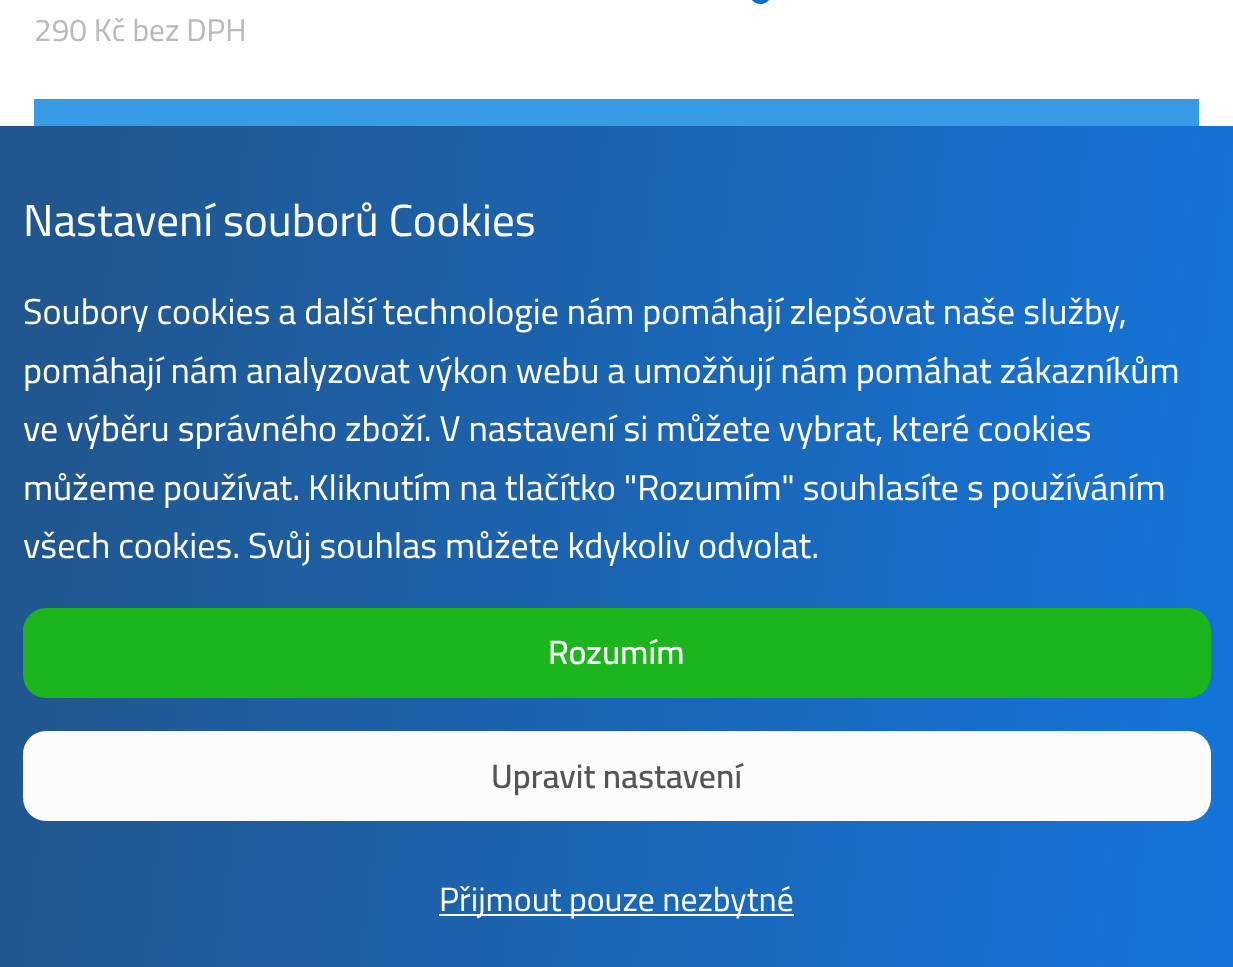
<!DOCTYPE html>
<meta charset="utf-8">
<style>body { margin: 0 } canvas { display: block }</style>
<canvas id="canvas" width="1233" height="967"></canvas>
<script>
window.onload = function () {
	const canvas = document.getElementById("canvas");
	const ctx = canvas.getContext("2d");
	ctx.miterLimit = 4;
	ctx.fontKerning = "normal";
	function txt(s, x, y) {
		ctx.fillText(s, x, y);
	}
	function fill(x, y, w, h) {
		ctx.fillRect(x, y, w, h);
	}
	function round(x, y, w, h, r) {
		ctx.beginPath();
		ctx.roundRect(x, y, w, h, r);
		ctx.fill();
	}
	let gradient;

	ctx.fillStyle = "#FFFFFF";
	fill(0, 0, 1233, 967);
	ctx.fillStyle = "#016FC3";
	ctx.beginPath();
	ctx.arc(760.5, -7, 11, 0, Math.PI * 2);
	ctx.fill();
	ctx.fillStyle = "#389BE5";
	fill(34, 99, 1165, 27);
	gradient = ctx.createLinearGradient(-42, 466, 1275, 628);
	gradient.addColorStop(0.05, "#21568E");
	gradient.addColorStop(1, "#1475DB");
	ctx.fillStyle = gradient;
	fill(0, 126, 1233, 841);
	ctx.fillStyle = "#1DB51D";
	round(23, 608, 1188, 90, 23);
	ctx.fillStyle = "#FCFCFC";
	round(23, 731, 1188, 90, 23);
	ctx.fillStyle = "#FFFFFF";
	fill(439, 914, 355, 2);
	ctx.font = "31.5px Cairo";
	ctx.fillStyle = "#BABABA";
	txt("290 Kč bez DPH", 34, 41);
	ctx.font = "45px Cairo";
	ctx.fillStyle = "#FFFFFF";
	txt("Nastavení souborů Cookies", 23, 236);
	ctx.font = "36px Cairo";
	txt("Soubory cookies a další technologie nám pomáhají zlepšovat naše služby,", 23, 324);
	txt("pomáhají nám analyzovat výkon webu a umožňují nám pomáhat zákazníkům", 23, 383);
	txt("ve výběru správného zboží. V nastavení si můžete vybrat, které cookies", 23, 441);
	txt("můžeme používat. Kliknutím na tlačítko \"Rozumím\" souhlasíte s používáním", 23, 500);
	txt("všech cookies. Svůj souhlas můžete kdykoliv odvolat.", 23, 558);
	ctx.font = "600 33.75px Cairo";
	txt("Rozumím", 548, 664);
	ctx.fillStyle = "#555555";
	txt("Upravit nastavení", 491, 788);
	ctx.font = "33.75px Cairo";
	ctx.fillStyle = "#FFFFFF";
	txt("Přijmout pouze nezbytné", 439, 911);
};
</script>
